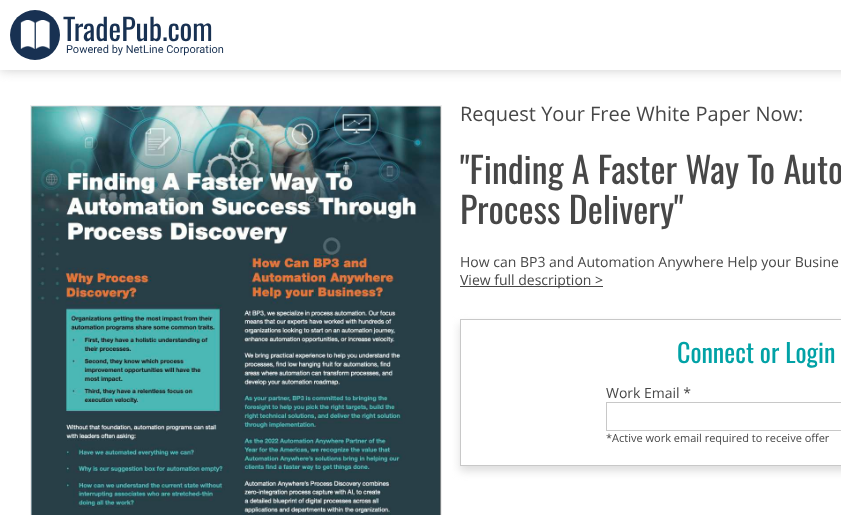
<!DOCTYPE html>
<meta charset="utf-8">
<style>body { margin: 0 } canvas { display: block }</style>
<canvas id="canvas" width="841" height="515"></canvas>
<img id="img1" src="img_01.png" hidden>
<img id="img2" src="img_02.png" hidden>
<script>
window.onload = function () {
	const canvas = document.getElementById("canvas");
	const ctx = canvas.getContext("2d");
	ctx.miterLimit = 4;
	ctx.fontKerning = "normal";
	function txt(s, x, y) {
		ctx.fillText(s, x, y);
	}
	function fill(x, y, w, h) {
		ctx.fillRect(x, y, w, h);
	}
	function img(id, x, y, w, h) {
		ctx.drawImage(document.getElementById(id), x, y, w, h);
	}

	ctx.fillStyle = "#FFFFFF";
	fill(0, 0, 841, 515);
	ctx.save();
	ctx.beginPath();
	ctx.rect(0, 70, 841, 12);
	ctx.clip();
	ctx.fillStyle = "#CCCCCC";
	ctx.filter = "blur(6px)";
	ctx.beginPath();
	ctx.rect(0, 0, 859, 70);
	ctx.fill();
	ctx.filter = "none";
	ctx.restore();
	ctx.fillStyle = "#183152";
	ctx.beginPath();
	ctx.arc(35, 35, 25, 0, Math.PI * 2);
	ctx.fill();
	img("img1", 20, 20, 30, 29);
	ctx.strokeStyle = "#EEEEEE";
	ctx.strokeRect(30.5, 105.5, 411, 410);
	img("img2", 31, 106, 410, 409);
	ctx.fillStyle = "#474747";
	fill(460, 286, 143, 1);
	ctx.save();
	ctx.beginPath();
	ctx.moveTo(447, 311);
	ctx.lineTo(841, 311);
	ctx.lineTo(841, 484);
	ctx.lineTo(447, 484);
	ctx.closePath();
	ctx.moveTo(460, 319);
	ctx.lineTo(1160, 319);
	ctx.lineTo(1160, 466);
	ctx.lineTo(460, 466);
	ctx.closePath();
	ctx.clip("evenodd");
	ctx.fillStyle = "#DDDDDD";
	ctx.filter = "blur(4px)";
	ctx.beginPath();
	ctx.rect(460, 324, 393, 147);
	ctx.fill();
	ctx.filter = "none";
	ctx.restore();
	ctx.strokeStyle = "#C8C8C8";
	ctx.strokeRect(460.5, 319.5, 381, 146);
	ctx.strokeRect(606.5, 402.5, 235, 28);
	ctx.font = "30px Oswald";
	ctx.fillStyle = "#183152";
	txt("TradePub.com", 63, 41);
	ctx.font = "11px Roboto";
	txt("Powered by NetLine Corporation", 66, 53);
	ctx.font = "20px Open Sans";
	ctx.fillStyle = "#474747";
	txt("Request Your Free White Paper Now:", 460, 121);
	ctx.font = "36px Oswald";
	txt("\"Finding A Faster Way To Auto", 460, 184);
	txt("Process Delivery\"", 460, 224);
	ctx.font = "14px Open Sans";
	txt("How can BP3 and Automation Anywhere Help your Busine", 460, 267);
	txt("View full description >", 460, 285);
	ctx.font = "26px Oswald";
	ctx.fillStyle = "#01A2A6";
	txt("Connect or Login", 677, 363);
	ctx.font = "14px Open Sans";
	ctx.fillStyle = "#474747";
	txt("Work Email *", 606, 398);
	ctx.font = "11px Open Sans";
	txt("*Active work email required to receive offer", 606, 442);
};
</script>
